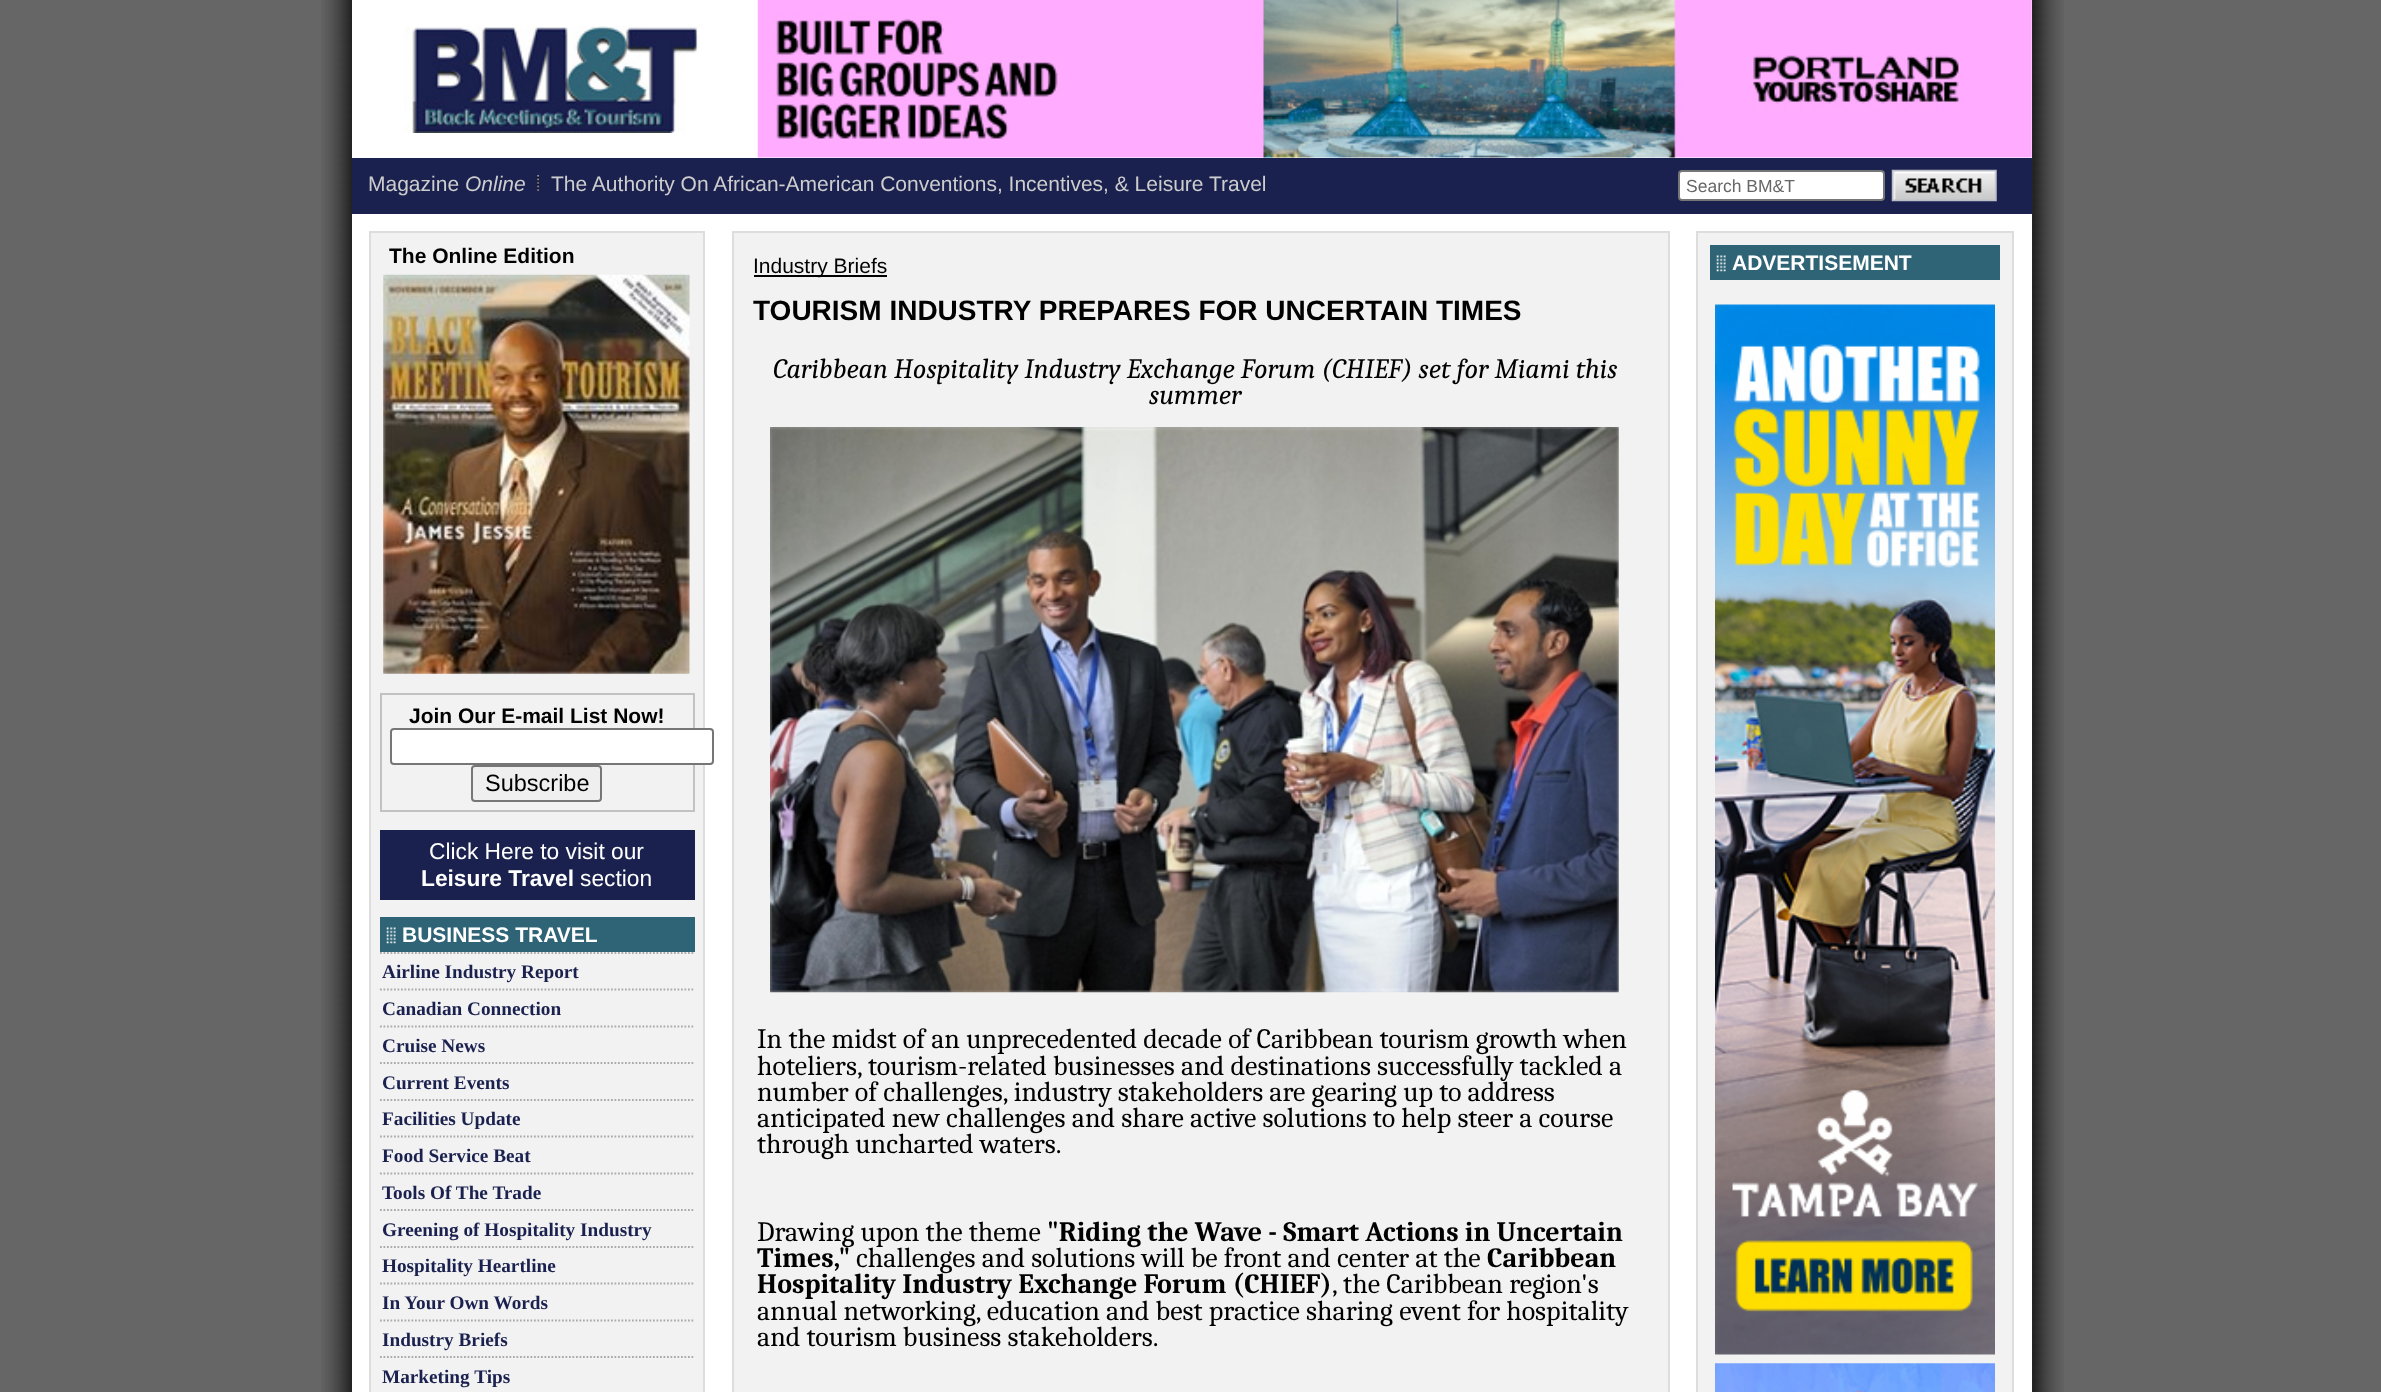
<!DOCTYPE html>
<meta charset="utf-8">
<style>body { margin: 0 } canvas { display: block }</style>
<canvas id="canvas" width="2381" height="1392"></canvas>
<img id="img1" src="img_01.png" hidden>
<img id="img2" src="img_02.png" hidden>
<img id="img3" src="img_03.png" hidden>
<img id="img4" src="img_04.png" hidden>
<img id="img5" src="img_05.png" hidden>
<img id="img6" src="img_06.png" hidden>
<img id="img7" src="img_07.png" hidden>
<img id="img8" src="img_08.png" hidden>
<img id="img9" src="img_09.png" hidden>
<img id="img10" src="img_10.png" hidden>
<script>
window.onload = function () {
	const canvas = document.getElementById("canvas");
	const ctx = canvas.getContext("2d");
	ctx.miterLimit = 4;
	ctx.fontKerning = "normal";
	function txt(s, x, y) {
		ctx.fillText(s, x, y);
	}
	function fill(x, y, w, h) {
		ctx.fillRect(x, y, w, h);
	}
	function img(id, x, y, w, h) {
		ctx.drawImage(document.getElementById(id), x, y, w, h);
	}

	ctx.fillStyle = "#666666";
	fill(0, 0, 2381, 1392);
	img("img1", 321, 0, 1743, 1392);
	ctx.fillStyle = "#FFFFFF";
	fill(352, 0, 1680, 158);
	img("img2", 404, 26, 295, 107);
	img("img3", 757, 0, 1275, 158);
	ctx.fillStyle = "#1A214F";
	fill(352, 158, 1680, 56);
	img("img4", 537, 175, 2, 16);
	ctx.fillStyle = "#FFFFFF";
	ctx.beginPath();
	ctx.roundRect(1679, 171, 205, 29, 3);
	ctx.fill();
	ctx.strokeStyle = "#767676";
	ctx.lineWidth = 2;
	ctx.stroke();
	img("img5", 1891, 169, 106, 33);
	fill(352, 214, 1680, 1178);
	ctx.fillStyle = "#F2F2F2";
	ctx.beginPath();
	ctx.rect(370, 232, 334, 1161);
	ctx.fill();
	ctx.strokeStyle = "#DDDDDD";
	ctx.stroke();
	img("img6", 383, 274, 307, 400);
	ctx.strokeStyle = "#C2C2C2";
	ctx.strokeRect(381, 694, 313, 117);
	ctx.fillStyle = "#FFFFFF";
	ctx.beginPath();
	ctx.roundRect(391, 729, 322, 35, 3);
	ctx.fill();
	ctx.strokeStyle = "#767676";
	ctx.stroke();
	ctx.fillStyle = "#EFEFEF";
	ctx.beginPath();
	ctx.roundRect(472, 766, 129, 35, 3);
	ctx.fill();
	ctx.stroke();
	ctx.fillStyle = "#1A214F";
	fill(380, 830, 315, 70);
	ctx.beginPath();
	ctx.moveTo(380, 953);
	ctx.lineTo(695, 953);
	ctx.strokeStyle = "#AAAAAA";
	ctx.lineWidth = 1.8;
	ctx.setLineDash([1.75, 1.75]);
	ctx.stroke();
	ctx.fillStyle = "#2F6476";
	fill(380, 917, 315, 35);
	img("img7", 386, 927, 10, 17);
	ctx.beginPath();
	ctx.moveTo(380, 989.5);
	ctx.lineTo(695, 989.5);
	ctx.stroke();
	ctx.beginPath();
	ctx.moveTo(380, 1026.5);
	ctx.lineTo(695, 1026.5);
	ctx.stroke();
	ctx.beginPath();
	ctx.moveTo(380, 1063);
	ctx.lineTo(695, 1063);
	ctx.stroke();
	ctx.beginPath();
	ctx.moveTo(380, 1100);
	ctx.lineTo(695, 1100);
	ctx.stroke();
	ctx.beginPath();
	ctx.moveTo(380, 1136.5);
	ctx.lineTo(695, 1136.5);
	ctx.stroke();
	ctx.beginPath();
	ctx.moveTo(380, 1173.5);
	ctx.lineTo(695, 1173.5);
	ctx.stroke();
	ctx.beginPath();
	ctx.moveTo(380, 1210);
	ctx.lineTo(695, 1210);
	ctx.stroke();
	ctx.beginPath();
	ctx.moveTo(380, 1247);
	ctx.lineTo(695, 1247);
	ctx.stroke();
	ctx.beginPath();
	ctx.moveTo(380, 1283.5);
	ctx.lineTo(695, 1283.5);
	ctx.stroke();
	ctx.beginPath();
	ctx.moveTo(380, 1320.5);
	ctx.lineTo(695, 1320.5);
	ctx.stroke();
	ctx.beginPath();
	ctx.moveTo(380, 1357);
	ctx.lineTo(695, 1357);
	ctx.stroke();
	ctx.fillStyle = "#F2F2F2";
	ctx.beginPath();
	ctx.rect(733, 232, 936, 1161);
	ctx.fill();
	ctx.strokeStyle = "#DDDDDD";
	ctx.lineWidth = 2;
	ctx.setLineDash([]);
	ctx.stroke();
	ctx.fillStyle = "#000000";
	fill(754, 275, 133, 2);
	img("img8", 770, 427, 849, 566);
	ctx.fillStyle = "#F2F2F2";
	ctx.beginPath();
	ctx.rect(1697, 232, 316, 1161);
	ctx.fill();
	ctx.stroke();
	ctx.fillStyle = "#2F6476";
	fill(1710, 245, 290, 35);
	img("img7", 1716, 255, 10, 17);
	img("img9", 1715, 304, 280, 1051);
	img("img10", 1715, 1363, 280, 29);
	ctx.font = "21px Liberation Sans";
	ctx.fillStyle = "#CDCDCD";
	txt("Magazine", 368, 191);
	ctx.font = "italic 21px Liberation Sans";
	txt("Online", 465, 191);
	ctx.font = "21px Liberation Sans";
	txt("The Authority On African-American Conventions, Incentives, & Leisure Travel", 551, 191);
	ctx.font = "17.5px Liberation Sans";
	ctx.fillStyle = "#666666";
	txt("Search BM&T", 1686, 192);
	ctx.font = "bold 21px Liberation Sans";
	ctx.fillStyle = "#000000";
	txt("The Online Edition", 389, 263);
	txt("Join Our E-mail List Now!", 409, 723);
	ctx.font = "23.5px Liberation Sans";
	txt("Subscribe", 485, 791);
	ctx.font = "22.75px Liberation Sans";
	ctx.fillStyle = "#FFFFFF";
	txt("Click Here to visit our", 429, 859);
	ctx.font = "bold 22.75px Liberation Sans";
	txt("Leisure Travel", 421, 886);
	ctx.font = "22.75px Liberation Sans";
	txt("section", 580, 886);
	ctx.font = "bold 21px Liberation Sans";
	txt("BUSINESS TRAVEL", 402, 942);
	ctx.font = "bold 19.25px Liberation Serif";
	ctx.fillStyle = "#1A214F";
	txt("Airline Industry Report", 382, 978);
	txt("Canadian Connection", 382, 1015);
	txt("Cruise News", 382, 1052);
	txt("Current Events", 382, 1089);
	txt("Facilities Update", 382, 1125);
	txt("Food Service Beat", 382, 1162);
	txt("Tools Of The Trade", 382, 1199);
	txt("Greening of Hospitality Industry", 382, 1236);
	txt("Hospitality Heartline", 382, 1272);
	txt("In Your Own Words", 382, 1309);
	txt("Industry Briefs", 382, 1346);
	txt("Marketing Tips", 382, 1383);
	ctx.font = "21px Liberation Sans";
	ctx.fillStyle = "#000000";
	txt("Industry Briefs", 753, 273);
	ctx.font = "bold 28px Liberation Sans";
	txt("TOURISM INDUSTRY PREPARES FOR UNCERTAIN TIMES", 753, 320);
	ctx.font = "italic 28px Caladea";
	txt("Caribbean Hospitality Industry Exchange Forum (CHIEF) set for Miami this", 773, 378);
	txt("summer", 1149, 404);
	ctx.font = "28px Caladea";
	txt("In the midst of an unprecedented decade of Caribbean tourism growth when", 757, 1048);
	txt("hoteliers, tourism-related businesses and destinations successfully tackled a", 757, 1075);
	txt("number of challenges, industry stakeholders are gearing up to address", 757, 1101);
	txt("anticipated new challenges and share active solutions to help steer a course", 757, 1127);
	txt("through uncharted waters.", 757, 1153);
	txt("Drawing upon the theme", 757, 1241);
	ctx.font = "bold 28px Caladea";
	txt("\"Riding the Wave - Smart Actions in Uncertain", 1047, 1241);
	txt("Times,\"", 757, 1267);
	ctx.font = "28px Caladea";
	txt("challenges and solutions will be front and center at the", 856, 1267);
	ctx.font = "bold 28px Caladea";
	txt("Caribbean", 1487, 1267);
	txt("Hospitality Industry Exchange Forum (CHIEF)", 757, 1293);
	ctx.font = "28px Caladea";
	txt(", the Caribbean region's", 1332, 1293);
	txt("annual networking, education and best practice sharing event for hospitality", 757, 1320);
	txt("and tourism business stakeholders.", 757, 1346);
	ctx.font = "bold 21px Liberation Sans";
	ctx.fillStyle = "#FFFFFF";
	txt("ADVERTISEMENT", 1732, 270);
};
</script>
